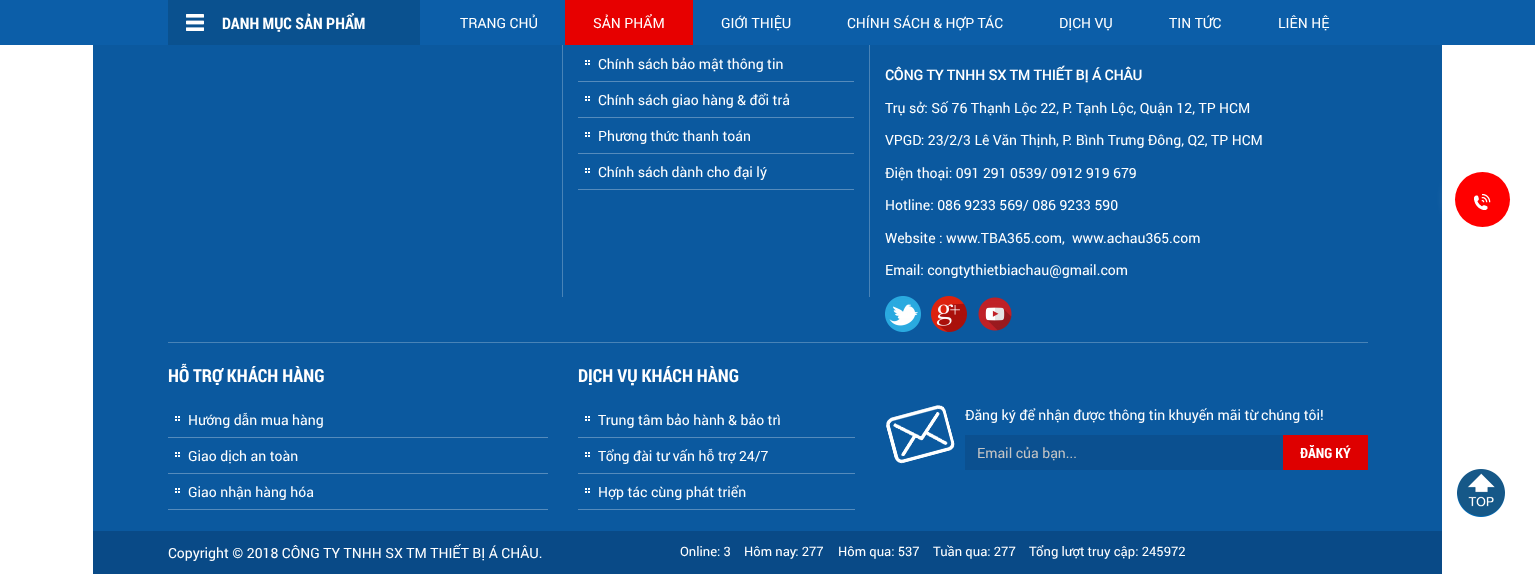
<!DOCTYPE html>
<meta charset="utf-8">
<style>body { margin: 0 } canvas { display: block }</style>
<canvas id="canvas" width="1535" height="574"></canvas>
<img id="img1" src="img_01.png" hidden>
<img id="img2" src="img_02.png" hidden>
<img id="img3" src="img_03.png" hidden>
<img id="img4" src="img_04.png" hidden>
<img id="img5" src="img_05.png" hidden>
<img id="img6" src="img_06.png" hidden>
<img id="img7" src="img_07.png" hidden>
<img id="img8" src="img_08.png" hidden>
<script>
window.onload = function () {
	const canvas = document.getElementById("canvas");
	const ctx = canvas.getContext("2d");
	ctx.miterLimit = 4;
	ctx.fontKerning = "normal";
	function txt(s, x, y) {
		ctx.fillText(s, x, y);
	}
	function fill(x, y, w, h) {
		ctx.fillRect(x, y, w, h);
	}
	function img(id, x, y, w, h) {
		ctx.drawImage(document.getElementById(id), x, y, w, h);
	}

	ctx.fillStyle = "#FFFFFF";
	fill(0, 0, 1535, 574);
	ctx.fillStyle = "#0C5EA8";
	fill(0, 0, 1535, 45);
	ctx.fillStyle = "#0A518F";
	fill(168, 0, 252, 45);
	img("img1", 186, 14, 18, 17);
	ctx.fillStyle = "#E70000";
	fill(565, 0, 128, 45);
	ctx.fillStyle = "#0B599F";
	fill(93, 45, 1349, 486);
	ctx.fillStyle = "#4883B7";
	fill(168, 342, 1200, 1);
	fill(562, 45, 1, 252);
	fill(869, 45, 1, 252);
	ctx.fillStyle = "#558BBC";
	fill(578, 81, 276, 1);
	img("img2", 585, 60, 5, 5);
	fill(578, 117, 276, 1);
	img("img2", 585, 96, 5, 5);
	fill(578, 153, 276, 1);
	img("img2", 585, 132, 5, 5);
	fill(578, 189, 276, 1);
	img("img2", 585, 168, 5, 5);
	img("img3", 885, 296, 36, 36);
	img("img4", 931, 296, 36, 36);
	img("img5", 978, 297, 34, 34);
	fill(168, 437, 380, 1);
	img("img2", 175, 416, 5, 5);
	fill(168, 473, 380, 1);
	img("img2", 175, 452, 5, 5);
	fill(168, 509, 380, 1);
	img("img2", 175, 488, 5, 5);
	fill(578, 437, 277, 1);
	img("img2", 585, 416, 5, 5);
	fill(578, 473, 277, 1);
	img("img2", 585, 452, 5, 5);
	fill(578, 509, 277, 1);
	img("img2", 585, 488, 5, 5);
	img("img6", 886, 405, 69, 59);
	ctx.fillStyle = "#0B5090";
	fill(965, 435, 318, 35);
	ctx.fillStyle = "#DE0000";
	fill(1283, 435, 85, 35);
	ctx.fillStyle = "#094A87";
	fill(93, 531, 1349, 43);
	ctx.fillStyle = "#FF0000";
	ctx.beginPath();
	ctx.arc(1482.5, 199.5, 27.5, 0, Math.PI * 2);
	ctx.fill();
	img("img7", 1474, 194, 17, 16);
	ctx.save();
	ctx.beginPath();
	ctx.moveTo(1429, 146);
	ctx.lineTo(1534, 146);
	ctx.lineTo(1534, 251);
	ctx.lineTo(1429, 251);
	ctx.closePath();
	ctx.moveTo(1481.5, 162);
	ctx.bezierCurveTo(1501.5, 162, 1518, 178.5, 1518, 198.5);
	ctx.bezierCurveTo(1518, 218.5, 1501.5, 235, 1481.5, 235);
	ctx.bezierCurveTo(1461.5, 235, 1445, 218.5, 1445, 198.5);
	ctx.bezierCurveTo(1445, 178.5, 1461.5, 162, 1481.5, 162);
	ctx.closePath();
	ctx.clip("evenodd");
	ctx.fillStyle = "rgba(255, 255, 255, 0.2)";
	ctx.filter = "blur(5px)";
	ctx.beginPath();
	ctx.roundRect(1445, 162, 73, 73, 36.5);
	ctx.fill();
	ctx.filter = "none";
	ctx.restore();
	img("img8", 1457, 469, 48, 48);
	ctx.font = "bold 16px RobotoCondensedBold";
	ctx.fillStyle = "#FFFFFF";
	txt("DANH MỤC SẢN PHẨM", 222, 29);
	ctx.font = "14px Roboto";
	txt("TRANG CHỦ", 460, 28);
	txt("SẢN PHẨM", 593, 28);
	txt("GIỚI THIỆU", 721, 28);
	txt("CHÍNH SÁCH & HỢP TÁC", 847, 28);
	txt("DỊCH VỤ", 1059, 28);
	txt("TIN TỨC", 1169, 28);
	txt("LIÊN HỆ", 1278, 28);
	txt("Chính sách bảo mật thông tin", 598, 69);
	txt("Chính sách giao hàng & đổi trả", 598, 105);
	txt("Phương thức thanh toán", 598, 141);
	txt("Chính sách dành cho đại lý", 598, 177);
	ctx.font = "bold 14px Roboto";
	txt("CÔNG TY TNHH SX TM THIẾT BỊ Á CHÂU", 885, 80);
	ctx.font = "14px Roboto";
	txt("Trụ sở: Số 76 Thạnh Lộc 22, P. Tạnh Lộc, Quận 12, TP HCM", 885, 113);
	txt("VPGD: 23/2/3 Lê Văn Thịnh, P. Bình Trưng Đông, Q2, TP HCM", 885, 145);
	txt("Điện thoại: 091 291 0539/ 0912 919 679", 885, 178);
	txt("Hotline: 086 9233 569/ 086 9233 590", 885, 210);
	txt("Website : www.TBA365.com,", 885, 243);
	txt("www.achau365.com", 1072, 243);
	txt("Email: congtythietbiachau@gmail.com", 885, 275);
	ctx.font = "bold 18px RobotoCondensedBold";
	txt("HỖ TRỢ KHÁCH HÀNG", 168, 382);
	ctx.font = "14px Roboto";
	txt("Hướng dẫn mua hàng", 188, 425);
	txt("Giao dịch an toàn", 188, 461);
	txt("Giao nhận hàng hóa", 188, 497);
	ctx.font = "bold 18px RobotoCondensedBold";
	txt("DỊCH VỤ KHÁCH HÀNG", 578, 382);
	ctx.font = "14px Roboto";
	txt("Trung tâm bảo hành & bảo trì", 598, 425);
	txt("Tổng đài tư vấn hỗ trợ 24/7", 598, 461);
	txt("Hợp tác cùng phát triển", 598, 497);
	txt("Đăng ký để nhận được thông tin khuyến mãi từ chúng tôi!", 965, 420);
	ctx.fillStyle = "#C4C4C4";
	txt("Email của bạn...", 977, 458);
	ctx.font = "bold 14px RobotoCondensedBold";
	ctx.fillStyle = "#FFFFFF";
	txt("ĐĂNG KÝ", 1300, 458);
	ctx.font = "14px Roboto";
	txt("Copyright © 2018 CÔNG TY TNHH SX TM THIẾT BỊ Á CHÂU.", 168, 558);
	ctx.font = "13px Roboto";
	txt("Online: 3", 680, 556);
	txt("Hôm nay: 277", 744, 556);
	txt("Hôm qua: 537", 838, 556);
	txt("Tuần qua: 277", 933, 556);
	txt("Tổng lượt truy cập: 245972", 1029, 556);
};
</script>
